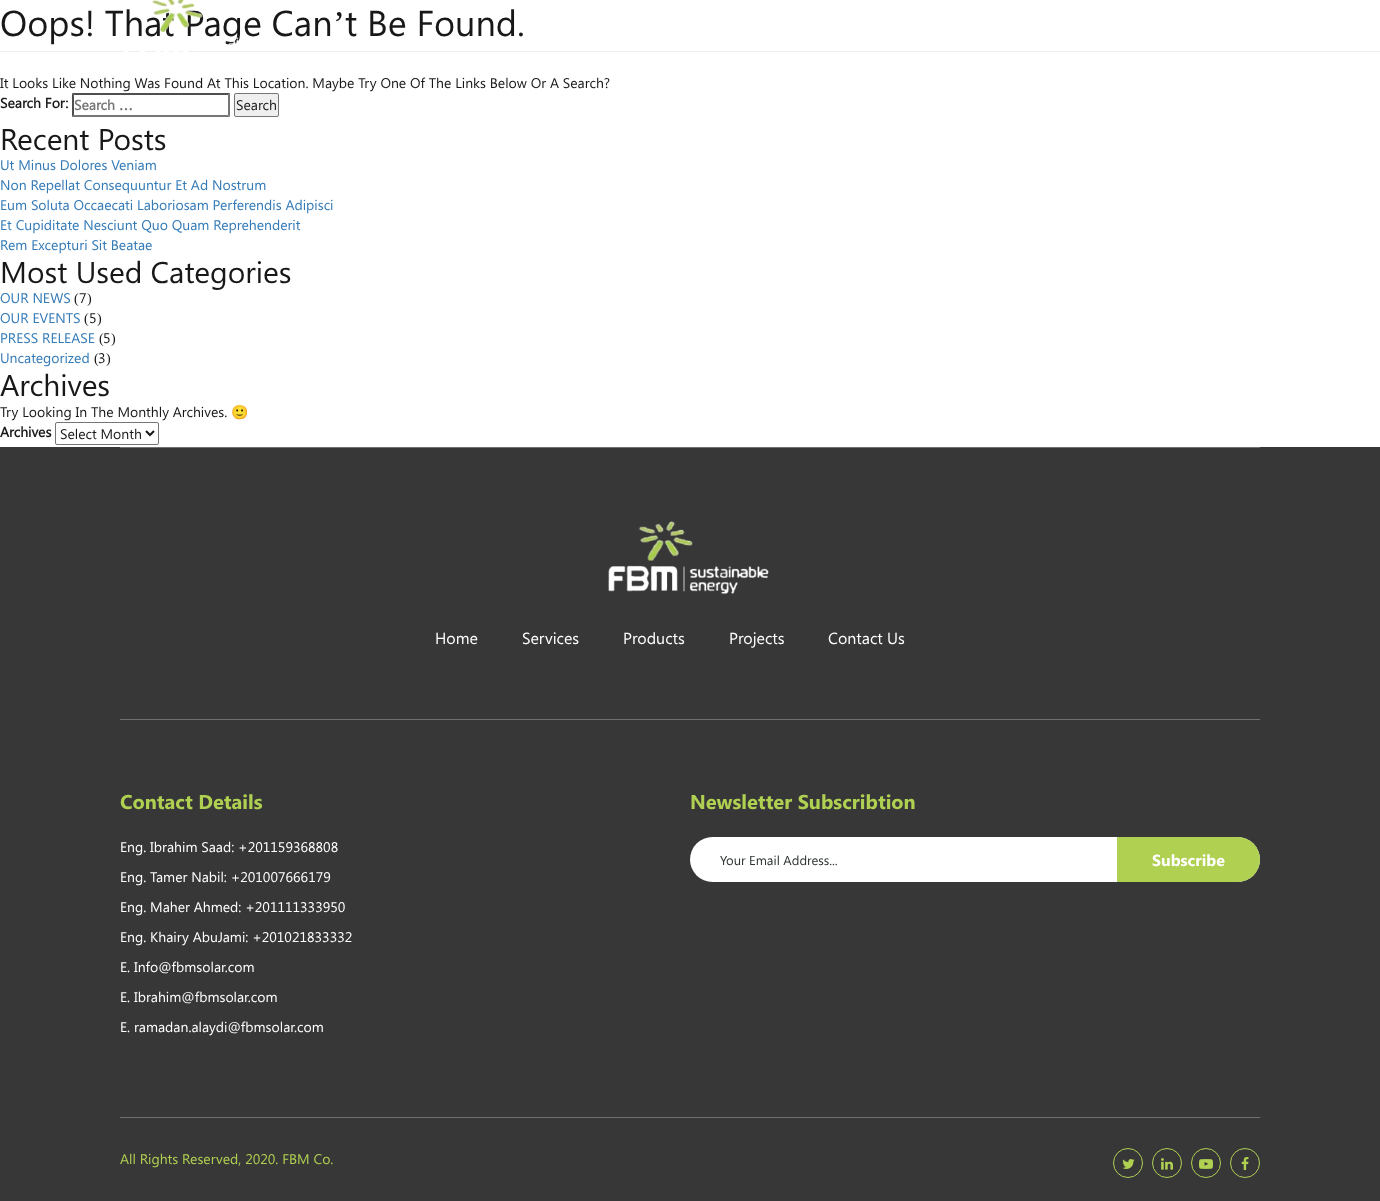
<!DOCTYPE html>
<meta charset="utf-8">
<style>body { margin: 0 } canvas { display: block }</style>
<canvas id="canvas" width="1380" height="1201"></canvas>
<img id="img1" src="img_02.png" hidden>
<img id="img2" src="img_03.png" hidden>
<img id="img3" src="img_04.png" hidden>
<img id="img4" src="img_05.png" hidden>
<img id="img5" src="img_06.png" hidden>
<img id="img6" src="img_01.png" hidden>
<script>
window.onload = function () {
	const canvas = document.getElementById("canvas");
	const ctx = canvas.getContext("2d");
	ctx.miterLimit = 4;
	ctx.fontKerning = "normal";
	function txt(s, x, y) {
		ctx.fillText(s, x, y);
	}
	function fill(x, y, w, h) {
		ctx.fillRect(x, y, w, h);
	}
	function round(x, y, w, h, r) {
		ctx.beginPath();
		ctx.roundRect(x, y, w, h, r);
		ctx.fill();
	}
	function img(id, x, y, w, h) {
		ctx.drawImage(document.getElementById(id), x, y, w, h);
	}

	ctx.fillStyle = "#FFFFFF";
	fill(0, 0, 1380, 1201);
	ctx.fillStyle = "#EEEEEE";
	fill(0, 51, 1380, 1);
	ctx.fillStyle = "#4F4F4F";
	ctx.beginPath();
	ctx.moveTo(72, 93);
	ctx.lineTo(230, 93);
	ctx.lineTo(228, 95);
	ctx.lineTo(74, 95);
	ctx.closePath();
	ctx.fill();
	ctx.fillStyle = "#767676";
	ctx.beginPath();
	ctx.moveTo(230, 93);
	ctx.lineTo(230, 117);
	ctx.lineTo(228, 115);
	ctx.lineTo(228, 95);
	ctx.closePath();
	ctx.fill();
	ctx.beginPath();
	ctx.moveTo(230, 117);
	ctx.lineTo(72, 117);
	ctx.lineTo(74, 115);
	ctx.lineTo(228, 115);
	ctx.closePath();
	ctx.fill();
	ctx.fillStyle = "#4F4F4F";
	ctx.beginPath();
	ctx.moveTo(72, 117);
	ctx.lineTo(72, 93);
	ctx.lineTo(74, 95);
	ctx.lineTo(74, 115);
	ctx.closePath();
	ctx.fill();
	ctx.fillStyle = "#EFEFEF";
	ctx.beginPath();
	ctx.roundRect(234.5, 93.5, 44, 23, 1.5);
	ctx.fill();
	ctx.strokeStyle = "#767676";
	ctx.stroke();
	ctx.beginPath();
	ctx.roundRect(55.5, 422.5, 103, 22, 1.5);
	ctx.stroke();
	ctx.beginPath();
	ctx.moveTo(146, 431);
	ctx.lineTo(150, 435);
	ctx.lineTo(154, 431);
	ctx.strokeStyle = "#181818";
	ctx.lineWidth = 2;
	ctx.stroke();
	ctx.fillStyle = "#373737";
	fill(0, 447, 1380, 754);
	ctx.fillStyle = "#707070";
	fill(120, 447, 1140, 1);
	fill(120, 719, 1140, 1);
	img("img1", 608, 521, 161, 74);
	fill(120, 1117, 1140, 1);
	ctx.fillStyle = "#FFFFFF";
	round(690, 837, 570, 45, 22.5);
	ctx.fillStyle = "#B0D052";
	ctx.beginPath();
	ctx.roundRect(1117, 837, 143, 45, [0, 22.5, 22.5, 0]);
	ctx.fill();
	ctx.beginPath();
	ctx.arc(1128, 1163, 14.5, 0, Math.PI * 2);
	ctx.strokeStyle = "#B0D052";
	ctx.lineWidth = 1;
	ctx.stroke();
	img("img2", 1122, 1159, 13, 10);
	ctx.beginPath();
	ctx.arc(1167, 1163, 14.5, 0, Math.PI * 2);
	ctx.stroke();
	img("img3", 1161, 1158, 12, 12);
	ctx.beginPath();
	ctx.arc(1206, 1163, 14.5, 0, Math.PI * 2);
	ctx.stroke();
	img("img4", 1199, 1159, 14, 10);
	ctx.beginPath();
	ctx.arc(1245, 1163, 14.5, 0, Math.PI * 2);
	ctx.stroke();
	img("img5", 1241, 1157, 8, 13);
	ctx.font = "36px Segoe UI";
	ctx.fillStyle = "#181818";
	txt("Oops! That Page Can", 0, 36);
	img("img6", 123, 0, 116, 52);
	ctx.font = "36px Liberation Serif";
	txt("’", 333, 36);
	ctx.font = "36px Segoe UI";
	txt("t Be Found.", 345, 36);
	ctx.font = "14px Segoe UI";
	txt("It Looks Like Nothing Was Found At This Location. Maybe Try One Of The Links Below Or A Search?", 0, 88);
	ctx.font = "bold 14px Segoe UI";
	txt("Search For:", 0, 108);
	ctx.fillStyle = "#757575";
	txt("Search", 74, 110);
	ctx.font = "bold 14px Liberation Serif";
	txt("…", 119, 110);
	ctx.font = "14px Segoe UI";
	ctx.fillStyle = "#181818";
	txt("Search", 236, 110);
	ctx.font = "30px Segoe UI";
	txt("Recent Posts", 0, 150);
	ctx.font = "14px Segoe UI";
	ctx.fillStyle = "#337AB7";
	txt("Ut Minus Dolores Veniam", 0, 170);
	txt("Non Repellat Consequuntur Et Ad Nostrum", 0, 190);
	txt("Eum Soluta Occaecati Laboriosam Perferendis Adipisci", 0, 210);
	txt("Et Cupiditate Nesciunt Quo Quam Reprehenderit", 0, 230);
	txt("Rem Excepturi Sit Beatae", 0, 250);
	ctx.font = "30px Segoe UI";
	ctx.fillStyle = "#181818";
	txt("Most Used Categories", 0, 283);
	ctx.font = "14px Segoe UI";
	ctx.fillStyle = "#337AB7";
	txt("OUR NEWS", 0, 303);
	ctx.font = "14px Liberation Serif";
	ctx.fillStyle = "#181818";
	txt("(", 74, 303);
	ctx.font = "14px Segoe UI";
	txt("7", 79, 303);
	ctx.font = "14px Liberation Serif";
	txt(")", 87, 303);
	ctx.font = "14px Segoe UI";
	ctx.fillStyle = "#337AB7";
	txt("OUR EVENTS", 0, 323);
	ctx.font = "14px Liberation Serif";
	ctx.fillStyle = "#181818";
	txt("(", 84, 323);
	ctx.font = "14px Segoe UI";
	txt("5", 89, 323);
	ctx.font = "14px Liberation Serif";
	txt(")", 97, 323);
	ctx.font = "14px Segoe UI";
	ctx.fillStyle = "#337AB7";
	txt("PRESS RELEASE", 0, 343);
	ctx.font = "14px Liberation Serif";
	ctx.fillStyle = "#181818";
	txt("(", 99, 343);
	ctx.font = "14px Segoe UI";
	txt("5", 103, 343);
	ctx.font = "14px Liberation Serif";
	txt(")", 111, 343);
	ctx.font = "14px Segoe UI";
	ctx.fillStyle = "#337AB7";
	txt("Uncategorized", 0, 363);
	ctx.font = "14px Liberation Serif";
	ctx.fillStyle = "#181818";
	txt("(", 94, 363);
	ctx.font = "14px Segoe UI";
	txt("3", 98, 363);
	ctx.font = "14px Liberation Serif";
	txt(")", 106, 363);
	ctx.font = "30px Segoe UI";
	txt("Archives", 0, 396);
	ctx.font = "14px Segoe UI";
	txt("Try Looking In The Monthly Archives.", 0, 417);
	ctx.font = "14px Noto Color Emoji";
	txt("🙂", 231, 417);
	ctx.font = "bold 14px Segoe UI";
	txt("Archives", 0, 437);
	ctx.font = "14px Segoe UI";
	txt("Select Month", 60, 439);
	ctx.font = "16px Segoe UI";
	ctx.fillStyle = "#FFFFFF";
	txt("Home", 435, 644);
	txt("Services", 522, 644);
	txt("Products", 623, 644);
	txt("Projects", 729, 644);
	txt("Contact Us", 828, 644);
	ctx.font = "bold 20px 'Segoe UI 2'";
	ctx.fillStyle = "#B0D052";
	txt("Contact Details", 120, 809);
	ctx.font = "14px Segoe UI";
	ctx.fillStyle = "#FFFFFF";
	txt("Eng. Ibrahim Saad: +201159368808", 120, 852);
	txt("Eng. Tamer Nabil: +201007666179", 120, 882);
	txt("Eng. Maher Ahmed: +201111333950", 120, 912);
	txt("Eng. Khairy AbuJami: +201021833332", 120, 942);
	txt("E. Info@fbmsolar.com", 120, 972);
	txt("E. Ibrahim@fbmsolar.com", 120, 1002);
	txt("E. ramadan.alaydi@fbmsolar.com", 120, 1032);
	ctx.font = "bold 20px 'Segoe UI 2'";
	ctx.fillStyle = "#B0D052";
	txt("Newsletter Subscribtion", 690, 809);
	ctx.font = "13px Segoe UI";
	ctx.fillStyle = "#2B3430";
	txt("Your Email Address...", 720, 865);
	ctx.font = "bold 16px 'Segoe UI 2'";
	ctx.fillStyle = "#FFFFFF";
	txt("Subscribe", 1152, 866);
	ctx.font = "14px Segoe UI";
	ctx.fillStyle = "#B0D052";
	txt("All Rights Reserved, 2020. FBM Co.", 120, 1164);
};
</script>
